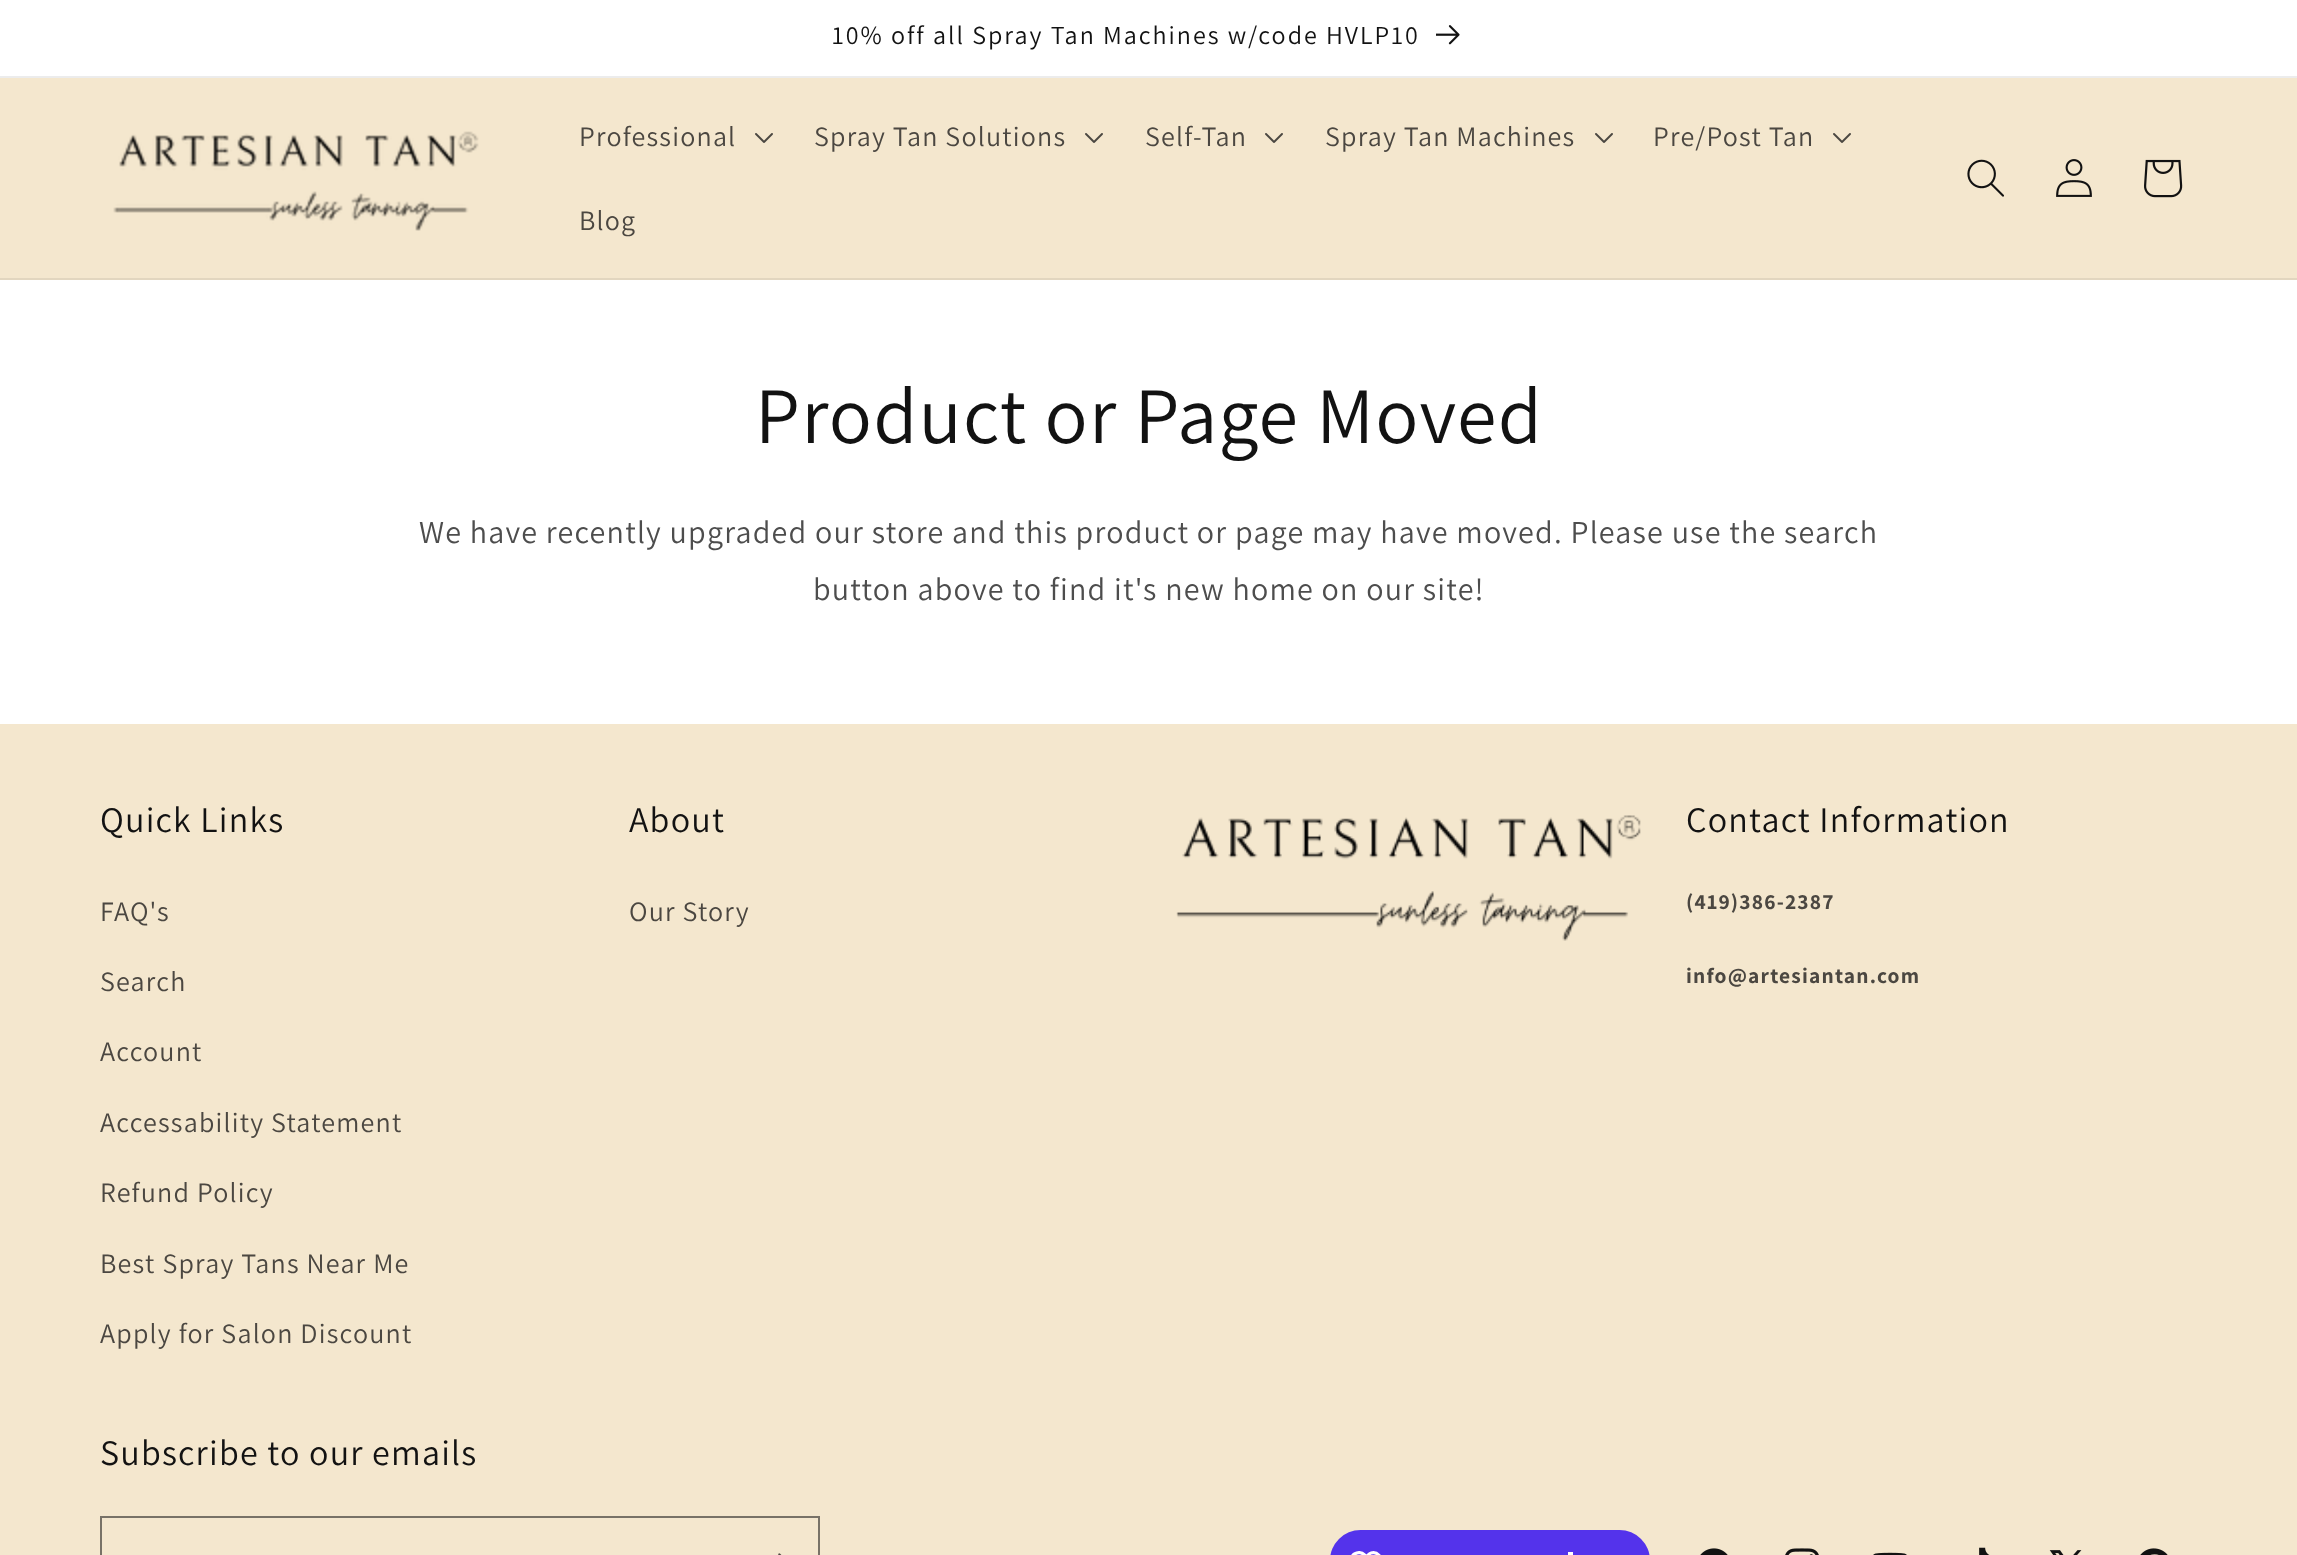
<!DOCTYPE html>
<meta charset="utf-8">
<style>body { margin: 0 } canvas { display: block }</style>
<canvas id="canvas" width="2297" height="1555"></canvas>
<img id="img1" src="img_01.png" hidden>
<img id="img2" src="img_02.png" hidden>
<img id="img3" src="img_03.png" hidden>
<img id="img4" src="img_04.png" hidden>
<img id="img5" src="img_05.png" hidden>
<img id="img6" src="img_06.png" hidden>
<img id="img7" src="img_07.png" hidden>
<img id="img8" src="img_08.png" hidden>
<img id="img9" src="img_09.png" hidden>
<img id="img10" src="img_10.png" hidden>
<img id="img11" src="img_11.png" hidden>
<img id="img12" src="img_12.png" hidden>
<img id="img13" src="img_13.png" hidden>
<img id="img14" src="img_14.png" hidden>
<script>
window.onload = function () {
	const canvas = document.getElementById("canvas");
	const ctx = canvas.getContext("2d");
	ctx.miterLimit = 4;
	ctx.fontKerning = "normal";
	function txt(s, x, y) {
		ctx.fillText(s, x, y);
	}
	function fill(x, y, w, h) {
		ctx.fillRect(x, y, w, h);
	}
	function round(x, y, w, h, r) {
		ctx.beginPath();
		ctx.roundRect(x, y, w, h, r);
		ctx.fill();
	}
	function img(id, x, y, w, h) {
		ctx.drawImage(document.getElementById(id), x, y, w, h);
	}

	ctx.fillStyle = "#FFFFFF";
	fill(0, 0, 2297, 1555);
	ctx.fillStyle = "#ECECEC";
	fill(0, 76, 2297, 2);
	img("img1", 1436, 25, 24, 20);
	ctx.fillStyle = "#F4E7CE";
	fill(0, 78, 2297, 200);
	ctx.fillStyle = "#E2D6BF";
	fill(0, 278, 2297, 2);
	img("img2", 113, 131, 366, 100);
	img("img3", 755, 133, 18, 10);
	img("img3", 1085, 133, 18, 10);
	img("img3", 1265, 133, 18, 10);
	img("img3", 1595, 133, 18, 10);
	img("img3", 1833, 133, 18, 10);
	img("img4", 1967, 159, 37, 38);
	img("img5", 2056, 159, 36, 38);
	img("img6", 2144, 159, 39, 39);
	ctx.fillStyle = "#F4E7CE";
	fill(0, 724, 2297, 831);
	img("img7", 1176, 815, 465, 126);
	ctx.strokeStyle = "#787267";
	ctx.lineWidth = 2;
	ctx.strokeRect(101, 1517, 718, 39);
	img("img8", 778, 1553, 4, 2);
	ctx.fillStyle = "#5433EB";
	round(1330, 1530, 320, 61, 36);
	ctx.beginPath();
	ctx.moveTo(1364.5, 1555);
	ctx.lineTo(1366, 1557);
	ctx.bezierCurveTo(1367.5, 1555.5, 1369, 1553.5, 1371, 1553);
	ctx.bezierCurveTo(1377, 1551, 1383, 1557.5, 1380.5, 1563.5);
	ctx.bezierCurveTo(1379.5, 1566.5, 1376.5, 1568.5, 1374.5, 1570.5);
	ctx.lineTo(1366, 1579.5);
	ctx.lineTo(1357.5, 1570.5);
	ctx.bezierCurveTo(1355.5, 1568.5, 1352.5, 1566.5, 1351.5, 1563.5);
	ctx.bezierCurveTo(1348.5, 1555.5, 1358.5, 1549, 1364.5, 1555);
	ctx.closePath();
	ctx.strokeStyle = "#FFFFFF";
	ctx.lineWidth = 3.3;
	ctx.lineJoin = "round";
	ctx.stroke();
	ctx.fillStyle = "#FFFFFF";
	fill(1568, 1552, 5, 3);
	img("img9", 1700, 1548, 28, 7);
	img("img10", 1785, 1548, 34, 7);
	img("img11", 1873, 1552, 34, 3);
	img("img12", 1979, 1547, 11, 8);
	img("img13", 2049, 1550, 33, 5);
	img("img14", 2140, 1548, 28, 7);
	ctx.letterSpacing = "2px";
	ctx.font = "26px Assistant";
	ctx.fillStyle = "#121212";
	txt("10% off all Spray Tan Machines w/code HVLP10", 832, 44);
	ctx.letterSpacing = "1.2px";
	ctx.font = "28px Assistant";
	ctx.fillStyle = "#4B4741";
	txt("Professional", 579, 146);
	txt("Spray Tan Solutions", 814, 146);
	txt("Self-Tan", 1145, 146);
	txt("Spray Tan Machines", 1325, 146);
	txt("Pre/Post Tan", 1653, 146);
	txt("Blog", 579, 230);
	ctx.font = "80px Assistant";
	ctx.fillStyle = "#121212";
	txt("Product or Page Moved", 755, 443);
	ctx.font = "32px Assistant";
	ctx.fillStyle = "#4D4D4D";
	txt("We have recently upgraded our store and this product or page may have moved. Please use the search", 419, 543);
	txt("button above to find it's new home on our site!", 813, 600);
	ctx.font = "36px Assistant";
	ctx.fillStyle = "#121212";
	txt("Quick Links", 100, 832);
	ctx.font = "28px Assistant";
	ctx.fillStyle = "#4B4741";
	txt("FAQ's", 100, 921);
	txt("Search", 100, 991);
	txt("Account", 100, 1061);
	txt("Accessability Statement", 100, 1132);
	txt("Refund Policy", 100, 1202);
	txt("Best Spray Tans Near Me", 100, 1273);
	txt("Apply for Salon Discount", 100, 1343);
	ctx.font = "36px Assistant";
	ctx.fillStyle = "#121212";
	txt("About", 629, 832);
	ctx.font = "28px Assistant";
	ctx.fillStyle = "#4B4741";
	txt("Our Story", 629, 921);
	ctx.font = "36px Assistant";
	ctx.fillStyle = "#121212";
	txt("Contact Information", 1686, 832);
	ctx.font = "bold 21.5px Assistant";
	ctx.fillStyle = "#4B4741";
	txt("(419)386-2387", 1686, 909);
	txt("info@artesiantan.com", 1686, 983);
	ctx.font = "36px Assistant";
	ctx.fillStyle = "#121212";
	txt("Subscribe to our emails", 100, 1465);
};
</script>
